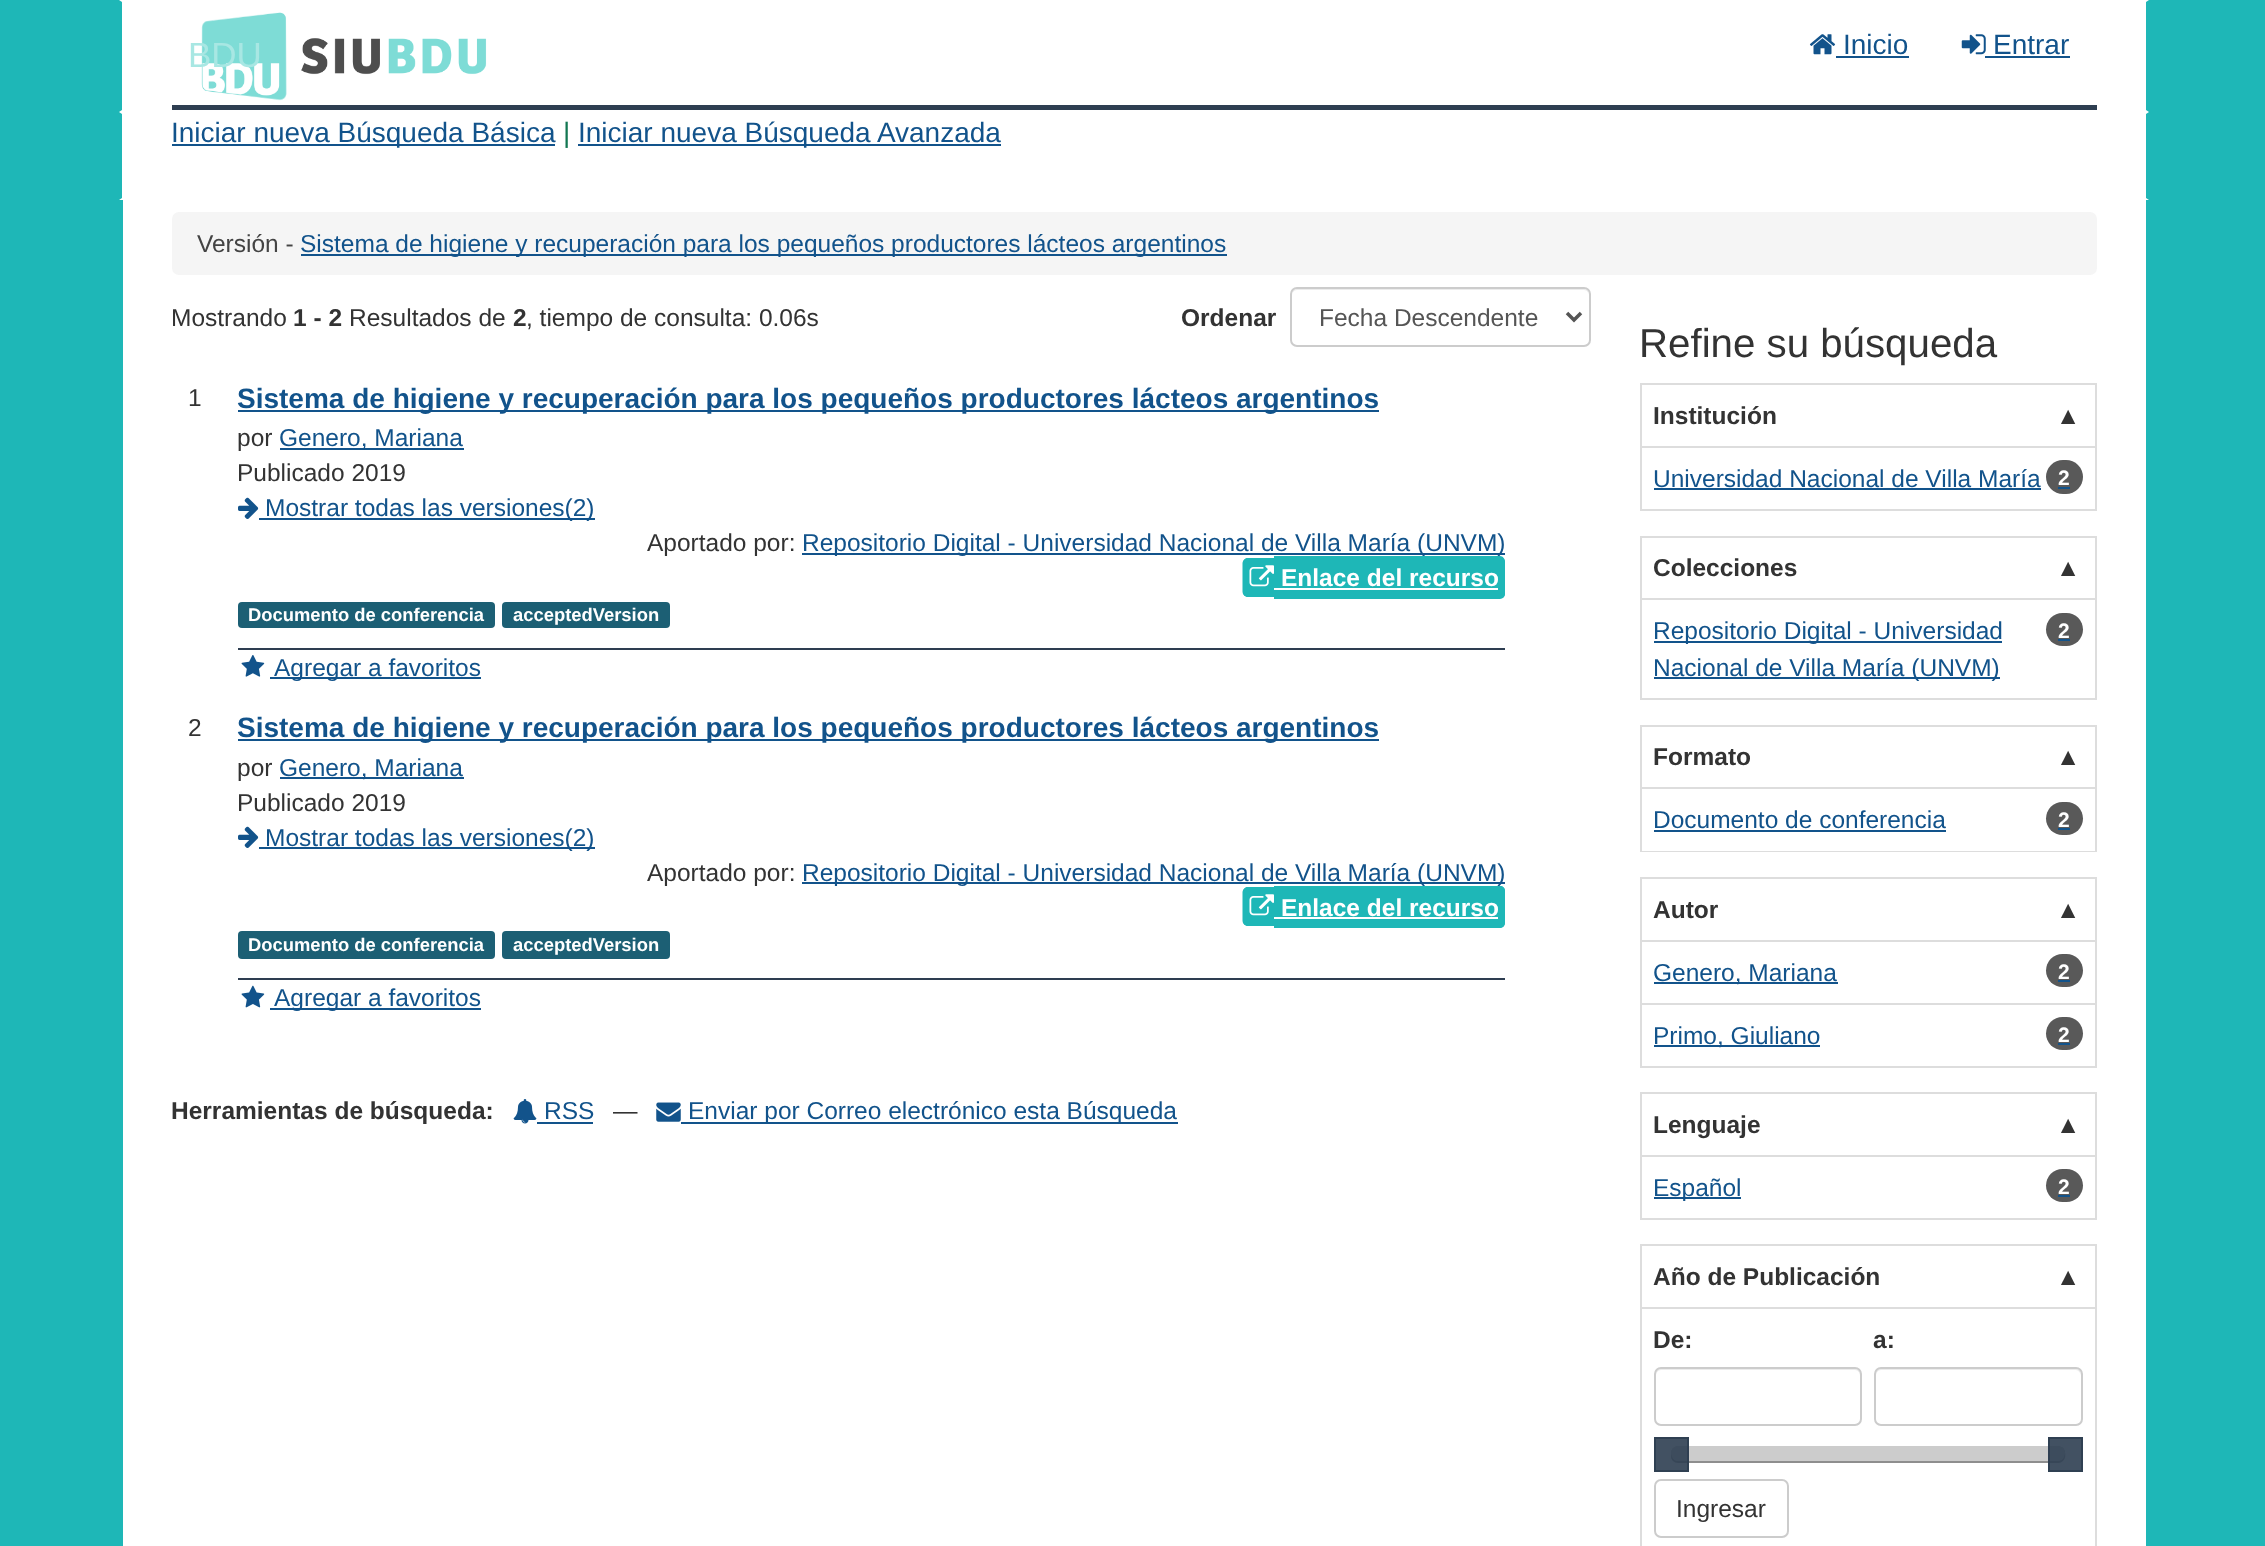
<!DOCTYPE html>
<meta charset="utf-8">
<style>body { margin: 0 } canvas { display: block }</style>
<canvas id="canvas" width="2265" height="1546"></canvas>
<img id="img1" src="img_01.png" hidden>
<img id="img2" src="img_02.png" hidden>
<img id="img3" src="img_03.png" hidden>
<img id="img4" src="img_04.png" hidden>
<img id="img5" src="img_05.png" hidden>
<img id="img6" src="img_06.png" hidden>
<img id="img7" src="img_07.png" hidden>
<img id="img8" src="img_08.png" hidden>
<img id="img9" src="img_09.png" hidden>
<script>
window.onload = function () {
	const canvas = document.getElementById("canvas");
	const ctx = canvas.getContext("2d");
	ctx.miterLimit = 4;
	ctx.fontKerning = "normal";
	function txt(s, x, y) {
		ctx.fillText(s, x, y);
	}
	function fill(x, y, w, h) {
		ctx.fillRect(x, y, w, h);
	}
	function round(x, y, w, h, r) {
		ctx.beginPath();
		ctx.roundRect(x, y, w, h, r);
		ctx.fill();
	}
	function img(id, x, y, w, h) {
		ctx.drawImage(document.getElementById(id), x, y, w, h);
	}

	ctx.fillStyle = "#1EB7B7";
	fill(0, 0, 2265, 1546);
	ctx.fillStyle = "#FFFFFF";
	fill(119, 0, 2030, 200);
	ctx.fillStyle = "#1EB7B7";
	ctx.beginPath();
	ctx.moveTo(2149, 0);
	ctx.lineTo(2149, 112);
	ctx.lineTo(2146, 110);
	ctx.lineTo(2146, 2);
	ctx.closePath();
	ctx.fill();
	ctx.beginPath();
	ctx.moveTo(119, 112);
	ctx.lineTo(119, 0);
	ctx.lineTo(122, 2);
	ctx.lineTo(122, 110);
	ctx.closePath();
	ctx.fill();
	img("img1", 201, 12, 286, 89);
	ctx.fillStyle = "#2E3E51";
	fill(172, 105, 1925, 5);
	img("img2", 1809, 34, 27, 21);
	ctx.fillStyle = "#12538B";
	fill(1836, 56, 73, 2);
	img("img3", 1961, 34, 25, 21);
	fill(1985, 56, 85, 2);
	ctx.fillStyle = "#1EB7B7";
	ctx.beginPath();
	ctx.moveTo(2149, 112);
	ctx.lineTo(2149, 200);
	ctx.lineTo(2146, 198);
	ctx.lineTo(2146, 114);
	ctx.closePath();
	ctx.fill();
	ctx.beginPath();
	ctx.moveTo(119, 200);
	ctx.lineTo(119, 112);
	ctx.lineTo(122, 114);
	ctx.lineTo(122, 198);
	ctx.closePath();
	ctx.fill();
	ctx.fillStyle = "#12538B";
	fill(172, 144, 383, 2);
	fill(578, 144, 423, 2);
	ctx.fillStyle = "#FFFFFF";
	fill(123, 200, 2023, 1346);
	ctx.fillStyle = "#F5F5F5";
	round(172, 212, 1925, 63, 7);
	ctx.fillStyle = "#12538B";
	fill(301, 254, 926, 2);
	ctx.fillStyle = "#ECECEC";
	ctx.beginPath();
	ctx.moveTo(1297, 290);
	ctx.lineTo(1584, 290);
	ctx.bezierCurveTo(1587, 290, 1589, 293, 1589, 296);
	ctx.bezierCurveTo(1589, 293, 1588, 289, 1584, 289);
	ctx.lineTo(1297, 289);
	ctx.bezierCurveTo(1293, 289, 1292, 293, 1292, 296);
	ctx.bezierCurveTo(1292, 293, 1294, 290, 1297, 290);
	ctx.closePath();
	ctx.fill();
	ctx.beginPath();
	ctx.roundRect(1291, 288, 299, 58, 6);
	ctx.strokeStyle = "#CCCCCC";
	ctx.lineWidth = 2;
	ctx.stroke();
	ctx.beginPath();
	ctx.moveTo(1567, 313);
	ctx.lineTo(1574, 320);
	ctx.lineTo(1581, 313);
	ctx.strokeStyle = "#555555";
	ctx.lineWidth = 3.5;
	ctx.stroke();
	ctx.fillStyle = "#2E3E51";
	fill(238, 648, 1267, 2);
	ctx.fillStyle = "#12538B";
	fill(238, 410, 1141, 2);
	fill(280, 448, 184, 2);
	img("img4", 238, 497, 21, 22);
	fill(259, 518, 336, 2);
	fill(802, 553, 703, 2);
	ctx.fillStyle = "#1EB7B7";
	ctx.beginPath();
	ctx.roundRect(1243, 558, 31, 39, [5, 0, 0, 5]);
	ctx.fill();
	ctx.beginPath();
	ctx.moveTo(1248, 558);
	ctx.lineTo(1274, 558);
	ctx.lineTo(1274, 597);
	ctx.lineTo(1248, 597);
	ctx.bezierCurveTo(1245, 597, 1242.5, 594.5, 1242.5, 591.5);
	ctx.lineTo(1242.5, 563.5);
	ctx.bezierCurveTo(1242.5, 560.5, 1245, 558, 1248, 558);
	ctx.closePath();
	ctx.moveTo(1248, 562);
	ctx.lineTo(1274, 562);
	ctx.lineTo(1274, 593);
	ctx.lineTo(1248, 593);
	ctx.bezierCurveTo(1247, 593, 1246, 592.5, 1246, 591.5);
	ctx.lineTo(1246, 563.5);
	ctx.bezierCurveTo(1246, 562.5, 1247, 562, 1248, 562);
	ctx.closePath();
	ctx.fill("evenodd");
	ctx.beginPath();
	ctx.roundRect(1274, 557, 231, 42, [0, 5, 5, 0]);
	ctx.fill();
	img("img5", 1249, 565, 25, 22);
	ctx.fillStyle = "#1C5F74";
	round(238, 602, 257, 26, 4);
	round(502, 602, 168, 26, 4);
	img("img6", 241, 655, 24, 22);
	ctx.fillStyle = "#12538B";
	fill(270, 677, 211, 2);
	ctx.fillStyle = "#2E3E51";
	fill(238, 978, 1267, 2);
	ctx.fillStyle = "#12538B";
	fill(238, 739, 1141, 2);
	fill(280, 777, 184, 2);
	img("img4", 238, 826, 21, 22);
	fill(259, 847, 336, 2);
	fill(802, 882, 703, 2);
	ctx.fillStyle = "#1EB7B7";
	ctx.beginPath();
	ctx.roundRect(1243, 887, 31, 39, [5, 0, 0, 5]);
	ctx.fill();
	ctx.beginPath();
	ctx.moveTo(1248, 887);
	ctx.lineTo(1274, 887);
	ctx.lineTo(1274, 926);
	ctx.lineTo(1248, 926);
	ctx.bezierCurveTo(1245, 926, 1242.5, 923.5, 1242.5, 920.5);
	ctx.lineTo(1242.5, 892.5);
	ctx.bezierCurveTo(1242.5, 889.5, 1245, 887, 1248, 887);
	ctx.closePath();
	ctx.moveTo(1248, 891);
	ctx.lineTo(1274, 891);
	ctx.lineTo(1274, 922);
	ctx.lineTo(1248, 922);
	ctx.bezierCurveTo(1247, 922, 1246, 921.5, 1246, 920.5);
	ctx.lineTo(1246, 892.5);
	ctx.bezierCurveTo(1246, 891.5, 1247, 891, 1248, 891);
	ctx.closePath();
	ctx.fill("evenodd");
	img("img5", 1249, 894, 25, 22);
	ctx.fillStyle = "#1C5F74";
	round(238, 931, 257, 28, 4);
	round(502, 931, 168, 28, 4);
	img("img7", 241, 985, 24, 23);
	ctx.fillStyle = "#12538B";
	fill(270, 1008, 211, 2);
	img("img8", 513, 1099, 24, 25);
	fill(537, 1122, 56, 2);
	img("img9", 656, 1102, 25, 20);
	fill(681, 1122, 497, 2);
	ctx.strokeStyle = "#DDDDDD";
	ctx.lineWidth = 2;
	ctx.strokeRect(1641, 384, 455, 63);
	ctx.fillStyle = "#DDDDDD";
	fill(2095, 448, 2, 63);
	fill(1640, 448, 2, 63);
	fill(1642, 509, 453, 2);
	ctx.fillStyle = "#12538B";
	fill(1654, 488, 387, 2);
	ctx.fillStyle = "#595959";
	round(2046, 460, 37, 34, 17);
	ctx.fillStyle = "#12538B";
	fill(2058, 487, 12, 2);
	ctx.strokeRect(1641, 537, 455, 62);
	ctx.fillStyle = "#DDDDDD";
	fill(2095, 600, 2, 100);
	fill(1640, 600, 2, 100);
	fill(1642, 698, 453, 2);
	ctx.fillStyle = "#12538B";
	fill(1654, 641, 348, 2);
	fill(1654, 677, 346, 2);
	ctx.fillStyle = "#595959";
	round(2046, 613, 37, 33, 16.5);
	ctx.fillStyle = "#12538B";
	fill(2058, 639, 12, 2);
	ctx.strokeRect(1641, 726, 455, 62);
	ctx.fillStyle = "#DDDDDD";
	fill(2095, 789, 2, 63);
	fill(1640, 789, 2, 63);
	fill(1642, 851, 453, 1);
	ctx.fillStyle = "#12538B";
	fill(1654, 830, 292, 2);
	ctx.fillStyle = "#595959";
	round(2046, 802, 37, 33, 16.5);
	ctx.fillStyle = "#12538B";
	fill(2058, 828, 12, 2);
	ctx.strokeRect(1641, 878, 455, 63);
	ctx.fillStyle = "#DDDDDD";
	fill(2095, 942, 2, 126);
	fill(1640, 942, 2, 126);
	fill(1642, 1003, 453, 2);
	ctx.fillStyle = "#12538B";
	fill(1654, 982, 184, 2);
	ctx.fillStyle = "#595959";
	round(2046, 954, 37, 33, 16.5);
	ctx.fillStyle = "#12538B";
	fill(2058, 980, 12, 2);
	ctx.fillStyle = "#DDDDDD";
	fill(1642, 1066, 453, 2);
	ctx.fillStyle = "#12538B";
	fill(1654, 1045, 166, 2);
	ctx.fillStyle = "#595959";
	round(2046, 1017, 37, 33, 16.5);
	ctx.fillStyle = "#12538B";
	fill(2058, 1043, 12, 2);
	ctx.strokeRect(1641, 1093, 455, 63);
	ctx.fillStyle = "#DDDDDD";
	fill(2095, 1157, 2, 63);
	fill(1640, 1157, 2, 63);
	fill(1642, 1218, 453, 2);
	ctx.fillStyle = "#12538B";
	fill(1654, 1197, 87, 2);
	ctx.fillStyle = "#595959";
	round(2046, 1169, 37, 33, 16.5);
	ctx.fillStyle = "#12538B";
	fill(2058, 1195, 12, 2);
	ctx.strokeRect(1641, 1245, 455, 63);
	ctx.fillStyle = "#DDDDDD";
	fill(2095, 1309, 2, 237);
	fill(1640, 1309, 2, 237);
	ctx.fillStyle = "#ECECEC";
	ctx.beginPath();
	ctx.moveTo(1661, 1370);
	ctx.lineTo(1855, 1370);
	ctx.bezierCurveTo(1858, 1370, 1860, 1373, 1860, 1376);
	ctx.lineTo(1860, 1374);
	ctx.bezierCurveTo(1860, 1371, 1858, 1369, 1855, 1369);
	ctx.lineTo(1661, 1369);
	ctx.bezierCurveTo(1658, 1369, 1656, 1371, 1656, 1374);
	ctx.lineTo(1656, 1376);
	ctx.bezierCurveTo(1656, 1373, 1658, 1370, 1661, 1370);
	ctx.closePath();
	ctx.fill();
	ctx.beginPath();
	ctx.roundRect(1655, 1368, 206, 57, 6);
	ctx.strokeStyle = "#CCCCCC";
	ctx.stroke();
	ctx.beginPath();
	ctx.moveTo(1881, 1370);
	ctx.lineTo(2076, 1370);
	ctx.bezierCurveTo(2078, 1370, 2081, 1373, 2081, 1376);
	ctx.lineTo(2081, 1374);
	ctx.bezierCurveTo(2081, 1371, 2079, 1369, 2076, 1369);
	ctx.lineTo(1881, 1369);
	ctx.bezierCurveTo(1878, 1369, 1876, 1371, 1876, 1374);
	ctx.lineTo(1876, 1376);
	ctx.bezierCurveTo(1876, 1373, 1878, 1370, 1881, 1370);
	ctx.closePath();
	ctx.fill();
	ctx.beginPath();
	ctx.roundRect(1875, 1368, 207, 57, 6);
	ctx.stroke();
	ctx.fillStyle = "rgba(0, 0, 0, 0.4)";
	ctx.beginPath();
	ctx.moveTo(1678, 1447);
	ctx.lineTo(2058, 1447);
	ctx.bezierCurveTo(2064, 1447, 2065, 1453, 2065, 1458);
	ctx.bezierCurveTo(2066, 1454, 2065, 1448, 2061, 1447);
	ctx.lineTo(2058, 1446);
	ctx.lineTo(1678, 1446);
	ctx.lineTo(1675, 1447);
	ctx.bezierCurveTo(1671, 1448, 1670, 1455, 1672, 1459);
	ctx.bezierCurveTo(1670, 1454, 1672, 1447, 1678, 1447);
	ctx.closePath();
	ctx.fill();
	ctx.fillStyle = "#CCCCCC";
	round(1671, 1446, 394, 17, 7);
	ctx.fillStyle = "rgba(0, 0, 0, 0.3)";
	ctx.beginPath();
	ctx.moveTo(1671, 1450);
	ctx.lineTo(1671, 1456);
	ctx.bezierCurveTo(1671, 1460, 1674, 1463, 1678, 1463);
	ctx.lineTo(2058, 1463);
	ctx.bezierCurveTo(2061, 1463, 2064, 1461, 2065, 1457);
	ctx.lineTo(2065, 1452);
	ctx.bezierCurveTo(2065, 1457, 2063, 1461, 2058, 1461);
	ctx.lineTo(1677, 1461);
	ctx.bezierCurveTo(1675, 1461, 1673, 1459, 1672, 1457);
	ctx.bezierCurveTo(1671, 1455, 1671, 1453, 1671, 1450);
	ctx.closePath();
	ctx.fill();
	ctx.fillStyle = "rgba(46, 62, 81, 0.9)";
	fill(1654, 1437, 35, 35);
	ctx.strokeStyle = "rgba(46, 62, 81, 0.9)";
	ctx.strokeRect(1655, 1438, 33, 33);
	fill(2048, 1437, 35, 35);
	ctx.strokeRect(2049, 1438, 33, 33);
	ctx.beginPath();
	ctx.roundRect(1655, 1480, 133, 57, 6);
	ctx.strokeStyle = "#CCCCCC";
	ctx.stroke();
	ctx.font = "35px Liberation Sans";
	ctx.fillStyle = "#A8E7E3";
	txt("BDU", 188, 67);
	ctx.font = "28px Liberation Sans";
	ctx.fillStyle = "#12538B";
	txt("Inicio", 1843, 54);
	txt("Entrar", 1993, 54);
	txt("Iniciar nueva Búsqueda Básica", 171, 142);
	ctx.fillStyle = "#137752";
	txt("|", 563, 142);
	ctx.fillStyle = "#12538B";
	txt("Iniciar nueva Búsqueda Avanzada", 578, 142);
	ctx.font = "24.5px Liberation Sans";
	ctx.fillStyle = "#444444";
	txt("Versión -", 197, 252);
	ctx.fillStyle = "#12538B";
	txt("Sistema de higiene y recuperación para los pequeños productores lácteos argentinos", 300, 252);
	ctx.fillStyle = "#333333";
	txt("Mostrando", 171, 326);
	ctx.font = "bold 24.5px Liberation Sans";
	txt("1 - 2", 293, 326);
	ctx.font = "24.5px Liberation Sans";
	txt("Resultados de", 349, 326);
	ctx.font = "bold 24.5px Liberation Sans";
	txt("2", 513, 326);
	ctx.font = "24.5px Liberation Sans";
	txt(", tiempo de consulta: 0.06s", 526, 326);
	ctx.font = "bold 24.5px Liberation Sans";
	txt("Ordenar", 1181, 326);
	ctx.font = "24.5px Liberation Sans";
	ctx.fillStyle = "#555555";
	txt("Fecha Descendente", 1319, 326);
	ctx.fillStyle = "#333333";
	txt("1", 188, 406);
	ctx.font = "bold 28px Liberation Sans";
	ctx.fillStyle = "#12538B";
	txt("Sistema de higiene y recuperación para los pequeños productores lácteos argentinos", 237, 408);
	ctx.font = "24.5px Liberation Sans";
	ctx.fillStyle = "#333333";
	txt("por", 237, 446);
	ctx.fillStyle = "#12538B";
	txt("Genero, Mariana", 279, 446);
	ctx.fillStyle = "#333333";
	txt("Publicado 2019", 237, 481);
	ctx.fillStyle = "#12538B";
	txt("Mostrar todas las versiones(2)", 265, 516);
	ctx.fillStyle = "#333333";
	txt("Aportado por:", 647, 551);
	ctx.fillStyle = "#12538B";
	txt("Repositorio Digital - Universidad Nacional de Villa María (UNVM)", 802, 551);
	ctx.fillStyle = "#1EB7B7";
	ctx.beginPath();
	ctx.moveTo(1274, 556);
	ctx.lineTo(1500, 556);
	ctx.bezierCurveTo(1503, 556, 1505, 559, 1505, 562);
	ctx.lineTo(1505, 593);
	ctx.bezierCurveTo(1505, 596, 1503, 598, 1500, 598);
	ctx.lineTo(1274, 598);
	ctx.closePath();
	ctx.moveTo(1274, 560);
	ctx.lineTo(1500, 560);
	ctx.bezierCurveTo(1501, 560, 1502, 561, 1502, 562);
	ctx.lineTo(1502, 593);
	ctx.bezierCurveTo(1502, 594, 1501, 595, 1500, 595);
	ctx.lineTo(1274, 595);
	ctx.closePath();
	ctx.fill("evenodd");
	ctx.font = "bold 24.5px Liberation Sans";
	ctx.fillStyle = "#FFFFFF";
	txt("Enlace del recurso", 1281, 586);
	fill(1274, 588, 224, 2);
	ctx.font = "bold 18.4px Liberation Sans";
	txt("Documento de conferencia", 248, 621);
	txt("acceptedVersion", 513, 621);
	ctx.font = "24.5px Liberation Sans";
	ctx.fillStyle = "#12538B";
	txt("Agregar a favoritos", 274, 676);
	ctx.fillStyle = "#333333";
	txt("2", 188, 736);
	ctx.font = "bold 28px Liberation Sans";
	ctx.fillStyle = "#12538B";
	txt("Sistema de higiene y recuperación para los pequeños productores lácteos argentinos", 237, 737);
	ctx.font = "24.5px Liberation Sans";
	ctx.fillStyle = "#333333";
	txt("por", 237, 776);
	ctx.fillStyle = "#12538B";
	txt("Genero, Mariana", 279, 776);
	ctx.fillStyle = "#333333";
	txt("Publicado 2019", 237, 811);
	ctx.fillStyle = "#12538B";
	txt("Mostrar todas las versiones(2)", 265, 846);
	ctx.fillStyle = "#333333";
	txt("Aportado por:", 647, 881);
	ctx.fillStyle = "#12538B";
	txt("Repositorio Digital - Universidad Nacional de Villa María (UNVM)", 802, 881);
	ctx.fillStyle = "#1EB7B7";
	ctx.beginPath();
	ctx.roundRect(1274, 886, 231, 42, [0, 5, 5, 0]);
	ctx.fill();
	ctx.beginPath();
	ctx.moveTo(1274, 886);
	ctx.lineTo(1500, 886);
	ctx.bezierCurveTo(1503, 886, 1505, 888, 1505, 891);
	ctx.lineTo(1505, 922);
	ctx.bezierCurveTo(1505, 925, 1503, 928, 1500, 928);
	ctx.lineTo(1274, 928);
	ctx.closePath();
	ctx.moveTo(1274, 889);
	ctx.lineTo(1500, 889);
	ctx.bezierCurveTo(1501, 889, 1502, 890, 1502, 891);
	ctx.lineTo(1502, 922);
	ctx.bezierCurveTo(1502, 923, 1501, 924, 1500, 924);
	ctx.lineTo(1274, 924);
	ctx.closePath();
	ctx.fill("evenodd");
	ctx.font = "bold 24.5px Liberation Sans";
	ctx.fillStyle = "#FFFFFF";
	txt("Enlace del recurso", 1281, 916);
	fill(1274, 917, 224, 2);
	ctx.font = "bold 18.4px Liberation Sans";
	txt("Documento de conferencia", 248, 951);
	txt("acceptedVersion", 513, 951);
	ctx.font = "24.5px Liberation Sans";
	ctx.fillStyle = "#12538B";
	txt("Agregar a favoritos", 274, 1006);
	ctx.font = "bold 24.5px Liberation Sans";
	ctx.fillStyle = "#333333";
	txt("Herramientas de búsqueda:", 171, 1119);
	ctx.font = "24.5px Liberation Sans";
	ctx.fillStyle = "#12538B";
	txt("RSS", 544, 1119);
	ctx.fillStyle = "#333333";
	txt("—", 613, 1119);
	ctx.fillStyle = "#12538B";
	txt("Enviar por Correo electrónico esta Búsqueda", 688, 1119);
	ctx.font = "40.25px Liberation Sans";
	ctx.fillStyle = "#333333";
	txt("Refine su búsqueda", 1639, 357);
	ctx.font = "bold 24.5px Liberation Sans";
	txt("Institución", 1653, 424);
	txt("▲", 2056, 424);
	ctx.font = "24.5px Liberation Sans";
	ctx.fillStyle = "#12538B";
	txt("Universidad Nacional de Villa María", 1653, 487);
	ctx.font = "bold 21px Liberation Sans";
	ctx.fillStyle = "#FFFFFF";
	txt("2", 2058, 485);
	ctx.font = "bold 24.5px Liberation Sans";
	ctx.fillStyle = "#333333";
	txt("Colecciones", 1653, 576);
	txt("▲", 2056, 576);
	ctx.font = "24.5px Liberation Sans";
	ctx.fillStyle = "#12538B";
	txt("Repositorio Digital - Universidad", 1653, 639);
	txt("Nacional de Villa María (UNVM)", 1653, 676);
	ctx.font = "bold 21px Liberation Sans";
	ctx.fillStyle = "#FFFFFF";
	txt("2", 2058, 638);
	ctx.font = "bold 24.5px Liberation Sans";
	ctx.fillStyle = "#333333";
	txt("Formato", 1653, 765);
	txt("▲", 2056, 765);
	ctx.font = "24.5px Liberation Sans";
	ctx.fillStyle = "#12538B";
	txt("Documento de conferencia", 1653, 828);
	ctx.font = "bold 21px Liberation Sans";
	ctx.fillStyle = "#FFFFFF";
	txt("2", 2058, 827);
	ctx.font = "bold 24.5px Liberation Sans";
	ctx.fillStyle = "#333333";
	txt("Autor", 1653, 918);
	txt("▲", 2056, 918);
	ctx.font = "24.5px Liberation Sans";
	ctx.fillStyle = "#12538B";
	txt("Genero, Mariana", 1653, 981);
	ctx.font = "bold 21px Liberation Sans";
	ctx.fillStyle = "#FFFFFF";
	txt("2", 2058, 979);
	ctx.font = "24.5px Liberation Sans";
	ctx.fillStyle = "#12538B";
	txt("Primo, Giuliano", 1653, 1044);
	ctx.font = "bold 21px Liberation Sans";
	ctx.fillStyle = "#FFFFFF";
	txt("2", 2058, 1042);
	ctx.font = "bold 24.5px Liberation Sans";
	ctx.fillStyle = "#333333";
	txt("Lenguaje", 1653, 1133);
	txt("▲", 2056, 1133);
	ctx.font = "24.5px Liberation Sans";
	ctx.fillStyle = "#12538B";
	txt("Español", 1653, 1196);
	ctx.font = "bold 21px Liberation Sans";
	ctx.fillStyle = "#FFFFFF";
	txt("2", 2058, 1194);
	ctx.font = "bold 24.5px Liberation Sans";
	ctx.fillStyle = "#333333";
	txt("Año de Publicación", 1653, 1285);
	txt("▲", 2056, 1285);
	txt("De:", 1653, 1348);
	txt("a:", 1873, 1348);
	ctx.font = "24.5px Liberation Sans";
	txt("Ingresar", 1676, 1517);
};
</script>
